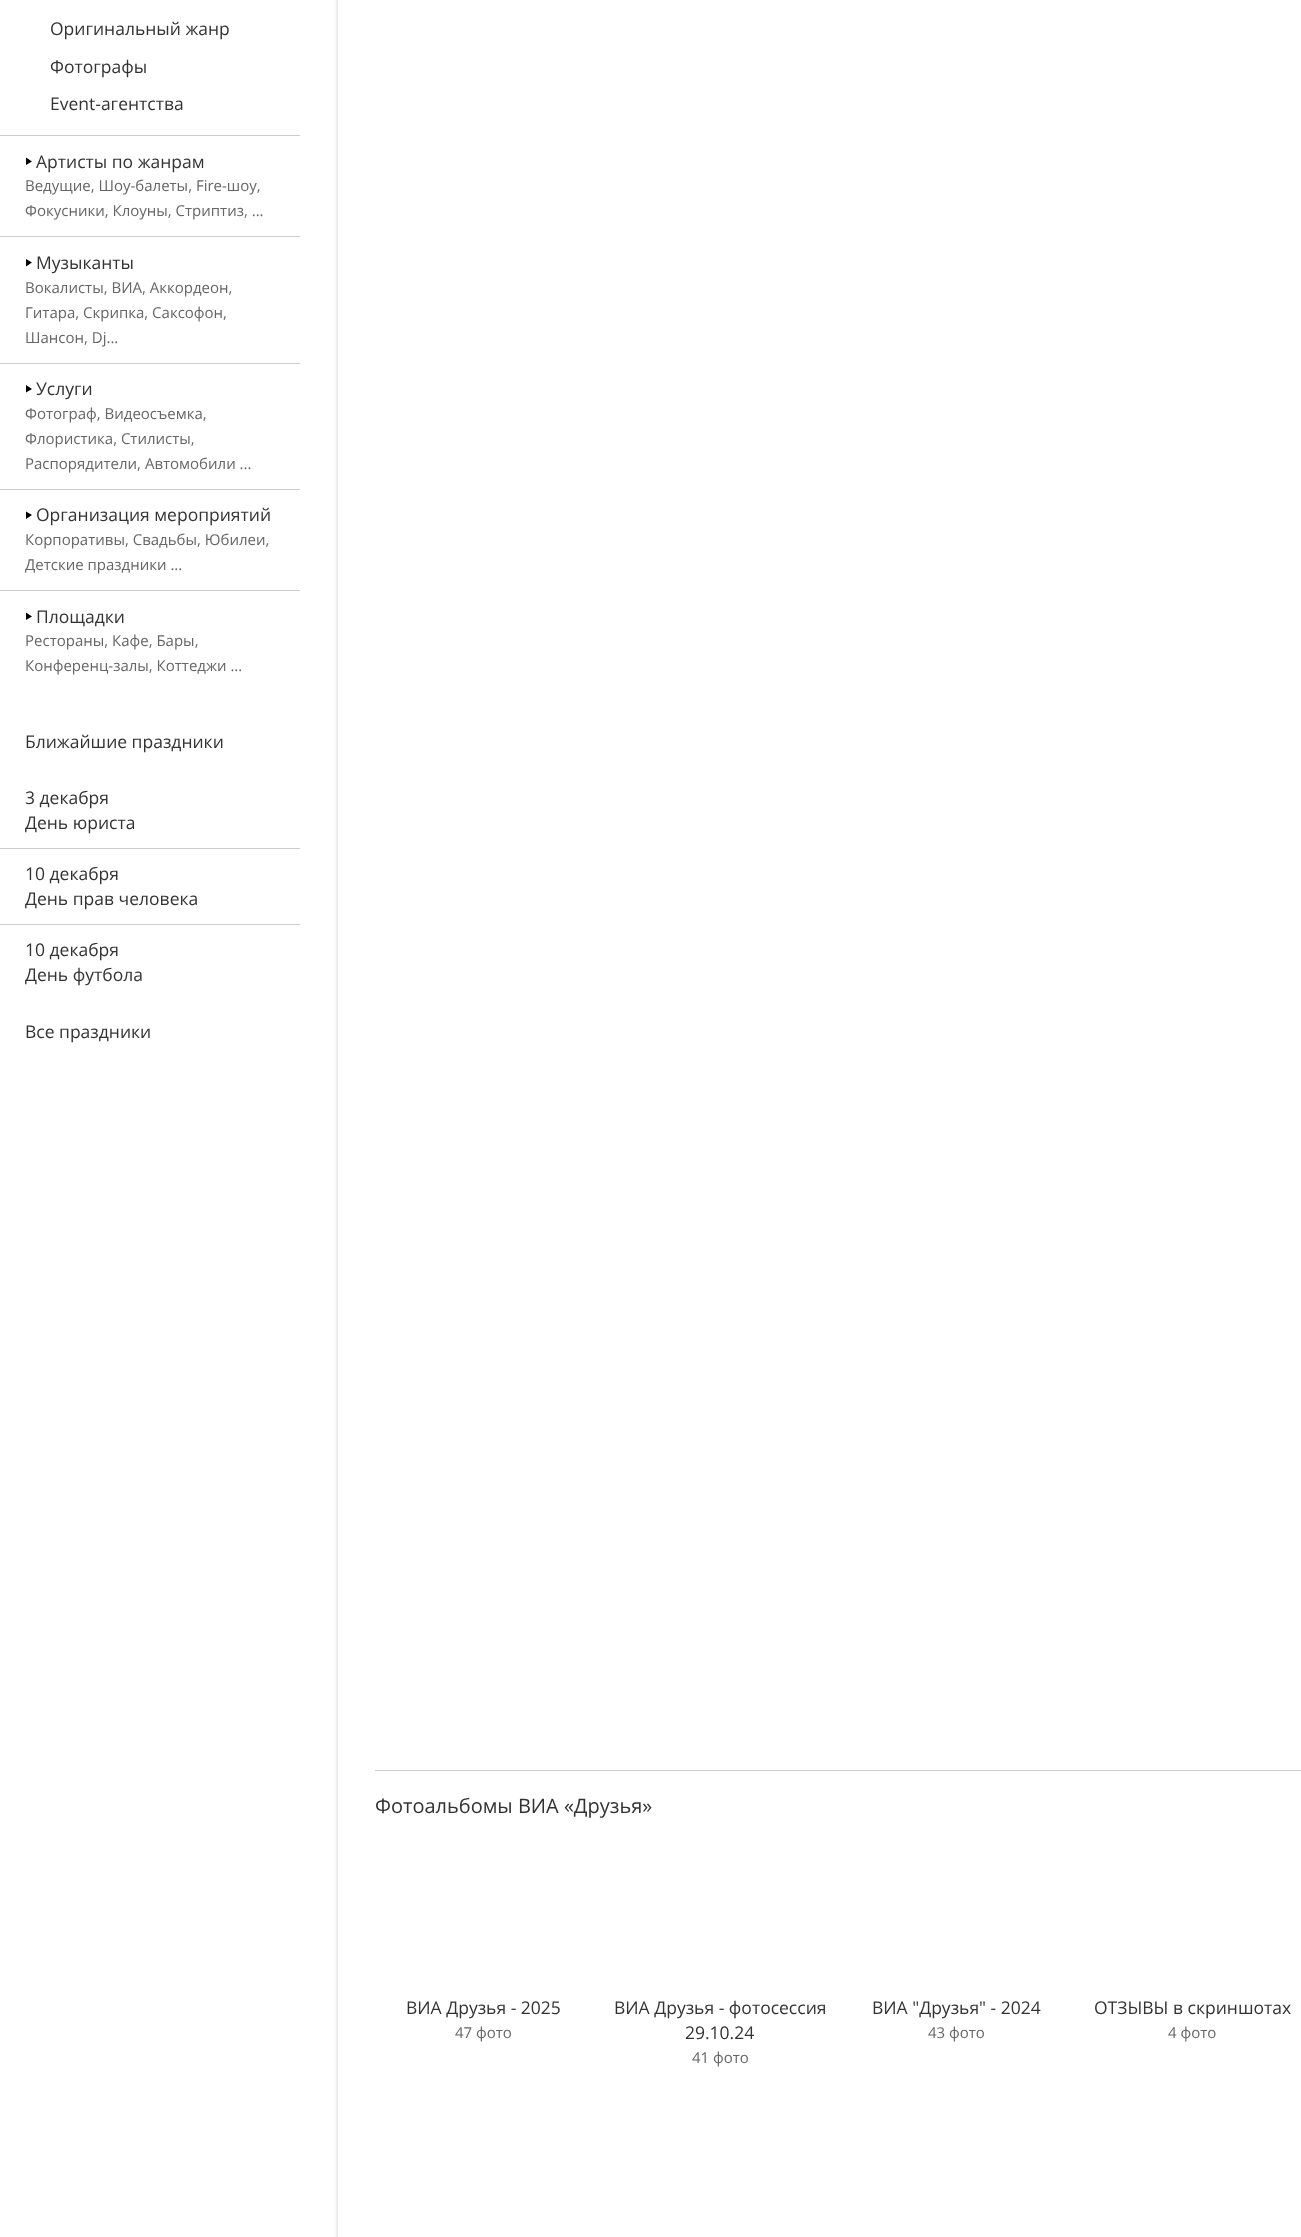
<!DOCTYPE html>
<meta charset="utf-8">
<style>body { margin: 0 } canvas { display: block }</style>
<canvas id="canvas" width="1301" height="2237"></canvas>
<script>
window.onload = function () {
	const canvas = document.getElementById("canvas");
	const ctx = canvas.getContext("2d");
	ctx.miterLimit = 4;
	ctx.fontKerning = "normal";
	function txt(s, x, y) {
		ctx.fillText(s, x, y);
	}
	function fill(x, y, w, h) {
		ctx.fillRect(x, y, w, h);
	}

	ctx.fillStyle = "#FFFFFF";
	fill(0, 0, 1301, 2237);
	ctx.fillStyle = "#CDCDCD";
	fill(0, 135, 300, 1);
	ctx.fillStyle = "#000000";
	ctx.beginPath();
	ctx.moveTo(26, 157.5);
	ctx.lineTo(26, 165);
	ctx.lineTo(32, 161.5);
	ctx.closePath();
	ctx.fill();
	ctx.fillStyle = "#CDCDCD";
	fill(0, 236, 300, 1);
	ctx.fillStyle = "#000000";
	ctx.beginPath();
	ctx.moveTo(26, 259);
	ctx.lineTo(26, 266.5);
	ctx.lineTo(32, 262.5);
	ctx.closePath();
	ctx.fill();
	ctx.fillStyle = "#CDCDCD";
	fill(0, 363, 300, 1);
	ctx.fillStyle = "#000000";
	ctx.beginPath();
	ctx.moveTo(26, 385);
	ctx.lineTo(26, 392.5);
	ctx.lineTo(32, 389);
	ctx.closePath();
	ctx.fill();
	ctx.fillStyle = "#CDCDCD";
	fill(0, 489, 300, 1);
	ctx.fillStyle = "#000000";
	ctx.beginPath();
	ctx.moveTo(26, 511.5);
	ctx.lineTo(26, 519);
	ctx.lineTo(32, 515);
	ctx.closePath();
	ctx.fill();
	ctx.fillStyle = "#CDCDCD";
	fill(0, 590, 300, 1);
	ctx.fillStyle = "#000000";
	ctx.beginPath();
	ctx.moveTo(26, 612.5);
	ctx.lineTo(26, 620);
	ctx.lineTo(32, 616.5);
	ctx.closePath();
	ctx.fill();
	ctx.fillStyle = "#CDCDCD";
	fill(0, 848, 300, 1);
	fill(0, 924, 300, 1);
	ctx.fillStyle = "rgba(0, 0, 0, 0.2)";
	ctx.filter = "blur(2px)";
	ctx.beginPath();
	ctx.roundRect(338, -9, 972, 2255, 2.5);
	ctx.fill();
	ctx.filter = "none";
	ctx.fillStyle = "#FFFFFF";
	fill(338, 0, 963, 2237);
	ctx.fillStyle = "#CDCDCD";
	fill(375, 1770, 926, 1);
	ctx.font = "17.5px Open Sans";
	ctx.fillStyle = "#333333";
	txt("Оригинальный жанр", 50, 35);
	txt("Фотографы", 50, 73);
	txt("Event-агентства", 50, 110);
	txt("Артисты по жанрам", 36, 168);
	ctx.font = "15px Open Sans";
	ctx.fillStyle = "#666666";
	txt("Ведущие, Шоу-балеты, Fire-шоу,", 25, 191);
	txt("Фокусники, Клоуны, Стриптиз, ...", 25, 216);
	ctx.font = "17.5px Open Sans";
	ctx.fillStyle = "#333333";
	txt("Музыканты", 36, 269);
	ctx.font = "15px Open Sans";
	ctx.fillStyle = "#666666";
	txt("Вокалисты, ВИА, Аккордеон,", 25, 293);
	txt("Гитара, Скрипка, Саксофон,", 25, 318);
	txt("Шансон, Dj...", 25, 343);
	ctx.font = "17.5px Open Sans";
	ctx.fillStyle = "#333333";
	txt("Услуги", 36, 395);
	ctx.font = "15px Open Sans";
	ctx.fillStyle = "#666666";
	txt("Фотограф, Видеосъемка,", 25, 419);
	txt("Флористика, Стилисты,", 25, 444);
	txt("Распорядители, Автомобили ...", 25, 469);
	ctx.font = "17.5px Open Sans";
	ctx.fillStyle = "#333333";
	txt("Организация мероприятий", 36, 521);
	ctx.font = "15px Open Sans";
	ctx.fillStyle = "#666666";
	txt("Корпоративы, Свадьбы, Юбилеи,", 25, 545);
	txt("Детские праздники ...", 25, 570);
	ctx.font = "17.5px Open Sans";
	ctx.fillStyle = "#333333";
	txt("Площадки", 36, 623);
	ctx.font = "15px Open Sans";
	ctx.fillStyle = "#666666";
	txt("Рестораны, Кафе, Бары,", 25, 646);
	txt("Конференц-залы, Коттеджи ...", 25, 671);
	ctx.font = "17.5px Open Sans";
	ctx.fillStyle = "#333333";
	txt("Ближайшие праздники", 25, 748);
	txt("3 декабря", 25, 804);
	txt("День юриста", 25, 829);
	txt("10 декабря", 25, 880);
	txt("День прав человека", 25, 905);
	txt("10 декабря", 25, 956);
	txt("День футбола", 25, 981);
	txt("Все праздники", 25, 1038);
	ctx.font = "20px Open Sans";
	txt("Фотоальбомы ВИА «Друзья»", 375, 1813);
	ctx.font = "17.5px Open Sans";
	txt("ВИА Друзья - 2025", 406, 2014);
	ctx.font = "15px Open Sans";
	ctx.fillStyle = "#666666";
	txt("47 фото", 455, 2038);
	ctx.font = "17.5px Open Sans";
	ctx.fillStyle = "#333333";
	txt("ВИА Друзья - фотосессия", 614, 2014);
	txt("29.10.24", 685, 2039);
	ctx.font = "15px Open Sans";
	ctx.fillStyle = "#666666";
	txt("41 фото", 692, 2063);
	ctx.font = "17.5px Open Sans";
	ctx.fillStyle = "#333333";
	txt("ВИА \"Друзья\" - 2024", 872, 2014);
	ctx.font = "15px Open Sans";
	ctx.fillStyle = "#666666";
	txt("43 фото", 928, 2038);
	ctx.font = "17.5px Open Sans";
	ctx.fillStyle = "#333333";
	txt("ОТЗЫВЫ в скриншотах", 1094, 2014);
	ctx.font = "15px Open Sans";
	ctx.fillStyle = "#666666";
	txt("4 фото", 1168, 2038);
};
</script>
